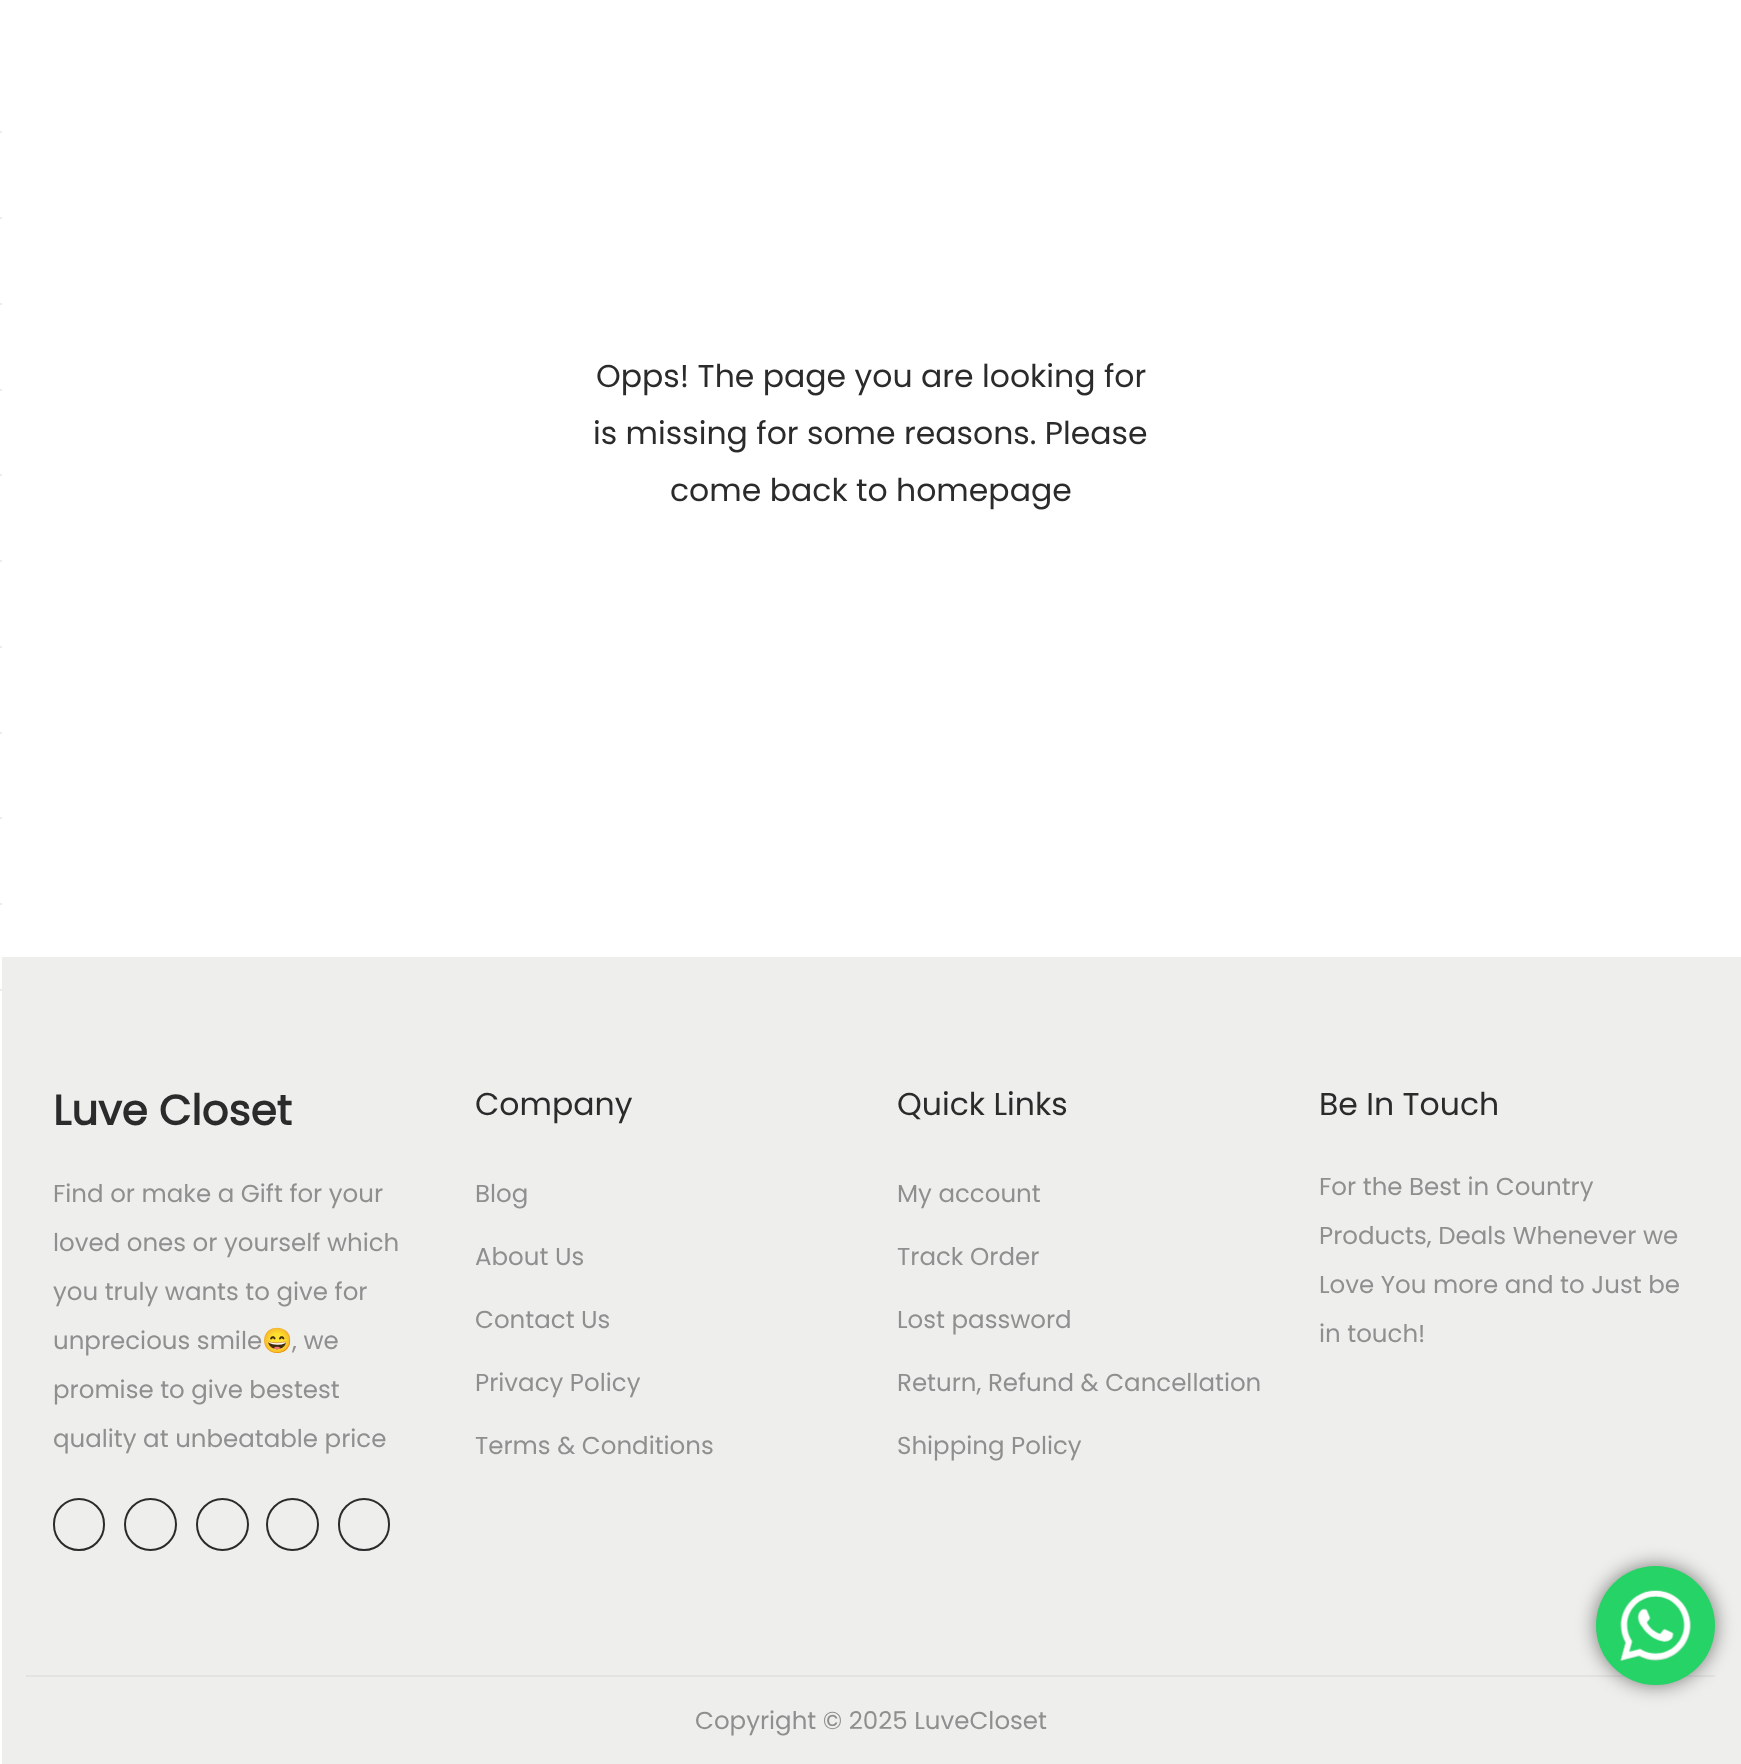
<!DOCTYPE html>
<meta charset="utf-8">
<style>body { margin: 0 } canvas { display: block }</style>
<canvas id="canvas" width="1741" height="1764"></canvas>
<img id="img1" src="img_01.png" hidden>
<script>
window.onload = function () {
	const canvas = document.getElementById("canvas");
	const ctx = canvas.getContext("2d");
	ctx.miterLimit = 4;
	ctx.fontKerning = "normal";
	function txt(s, x, y) {
		ctx.fillText(s, x, y);
	}
	function fill(x, y, w, h) {
		ctx.fillRect(x, y, w, h);
	}
	function img(id, x, y, w, h) {
		ctx.drawImage(document.getElementById(id), x, y, w, h);
	}

	ctx.fillStyle = "#FFFFFF";
	fill(0, 0, 1741, 1764);
	ctx.fillStyle = "#ECECEC";
	fill(0, 131, 2, 2);
	fill(0, 217, 2, 2);
	fill(0, 303, 2, 2);
	fill(0, 389, 2, 2);
	fill(0, 474, 2, 2);
	fill(0, 560, 2, 2);
	fill(0, 646, 2, 2);
	fill(0, 732, 2, 2);
	fill(0, 817, 2, 2);
	fill(0, 903, 2, 2);
	fill(0, 989, 2, 2);
	ctx.fillStyle = "#EEEEEC";
	fill(2, 957, 1739, 807);
	ctx.beginPath();
	ctx.roundRect(54, 1499, 50, 51, 25);
	ctx.strokeStyle = "#2B2B2B";
	ctx.lineWidth = 2;
	ctx.stroke();
	ctx.beginPath();
	ctx.arc(150.5, 1524.5, 25.5, 0, Math.PI * 2);
	ctx.stroke();
	ctx.beginPath();
	ctx.arc(222.5, 1524.5, 25.5, 0, Math.PI * 2);
	ctx.stroke();
	ctx.beginPath();
	ctx.arc(292.5, 1524.5, 25.5, 0, Math.PI * 2);
	ctx.stroke();
	ctx.beginPath();
	ctx.roundRect(339, 1499, 50, 51, 25);
	ctx.stroke();
	ctx.fillStyle = "#E3E3E3";
	fill(26, 1675, 1689, 2);
	ctx.fillStyle = "rgba(0, 0, 0, 0.5)";
	ctx.filter = "blur(9.5px)";
	ctx.beginPath();
	ctx.roundRect(1596, 1566, 119, 119, 59.5);
	ctx.fill();
	ctx.filter = "none";
	ctx.fillStyle = "#25D366";
	ctx.beginPath();
	ctx.arc(1655.5, 1625.5, 59.5, 0, Math.PI * 2);
	ctx.fill();
	img("img1", 1620, 1590, 71, 71);
	ctx.font = "31.5px Poppins";
	ctx.fillStyle = "#2B2B2B";
	txt("Opps! The page you are looking for", 596, 387);
	txt("is missing for some reasons. Please", 593, 444);
	txt("come back to homepage", 670, 501);
	ctx.font = "bold 42px Poppins";
	txt("Luve Closet", 53, 1125);
	ctx.font = "24.5px Poppins";
	ctx.fillStyle = "#8F8F8F";
	txt("Find or make a Gift for your", 53, 1202);
	txt("loved ones or yourself which", 53, 1251);
	txt("you truly wants to give for", 53, 1300);
	txt("unprecious smile", 53, 1349);
	ctx.font = "24.5px Noto Color Emoji";
	txt("😄", 262, 1349);
	ctx.font = "24.5px Poppins";
	txt(", we", 292, 1349);
	txt("promise to give bestest", 53, 1398);
	txt("quality at unbeatable price", 53, 1447);
	ctx.font = "31.5px Poppins";
	ctx.fillStyle = "#2B2B2B";
	txt("Company", 475, 1115);
	ctx.font = "24.5px Poppins";
	ctx.fillStyle = "#8F8F8F";
	txt("Blog", 475, 1202);
	txt("About Us", 475, 1265);
	txt("Contact Us", 475, 1328);
	txt("Privacy Policy", 475, 1391);
	txt("Terms & Conditions", 475, 1454);
	ctx.font = "31.5px Poppins";
	ctx.fillStyle = "#2B2B2B";
	txt("Quick Links", 897, 1115);
	ctx.font = "24.5px Poppins";
	ctx.fillStyle = "#8F8F8F";
	txt("My account", 897, 1202);
	txt("Track Order", 897, 1265);
	txt("Lost password", 897, 1328);
	txt("Return, Refund & Cancellation", 897, 1391);
	txt("Shipping Policy", 897, 1454);
	ctx.font = "31.5px Poppins";
	ctx.fillStyle = "#2B2B2B";
	txt("Be In Touch", 1319, 1115);
	ctx.font = "24.5px Poppins";
	ctx.fillStyle = "#8F8F8F";
	txt("For the Best in Country", 1319, 1195);
	txt("Products, Deals Whenever we", 1319, 1244);
	txt("Love You more and to Just be", 1319, 1293);
	txt("in touch!", 1319, 1342);
	txt("Copyright © 2025 LuveCloset", 695, 1729);
};
</script>
